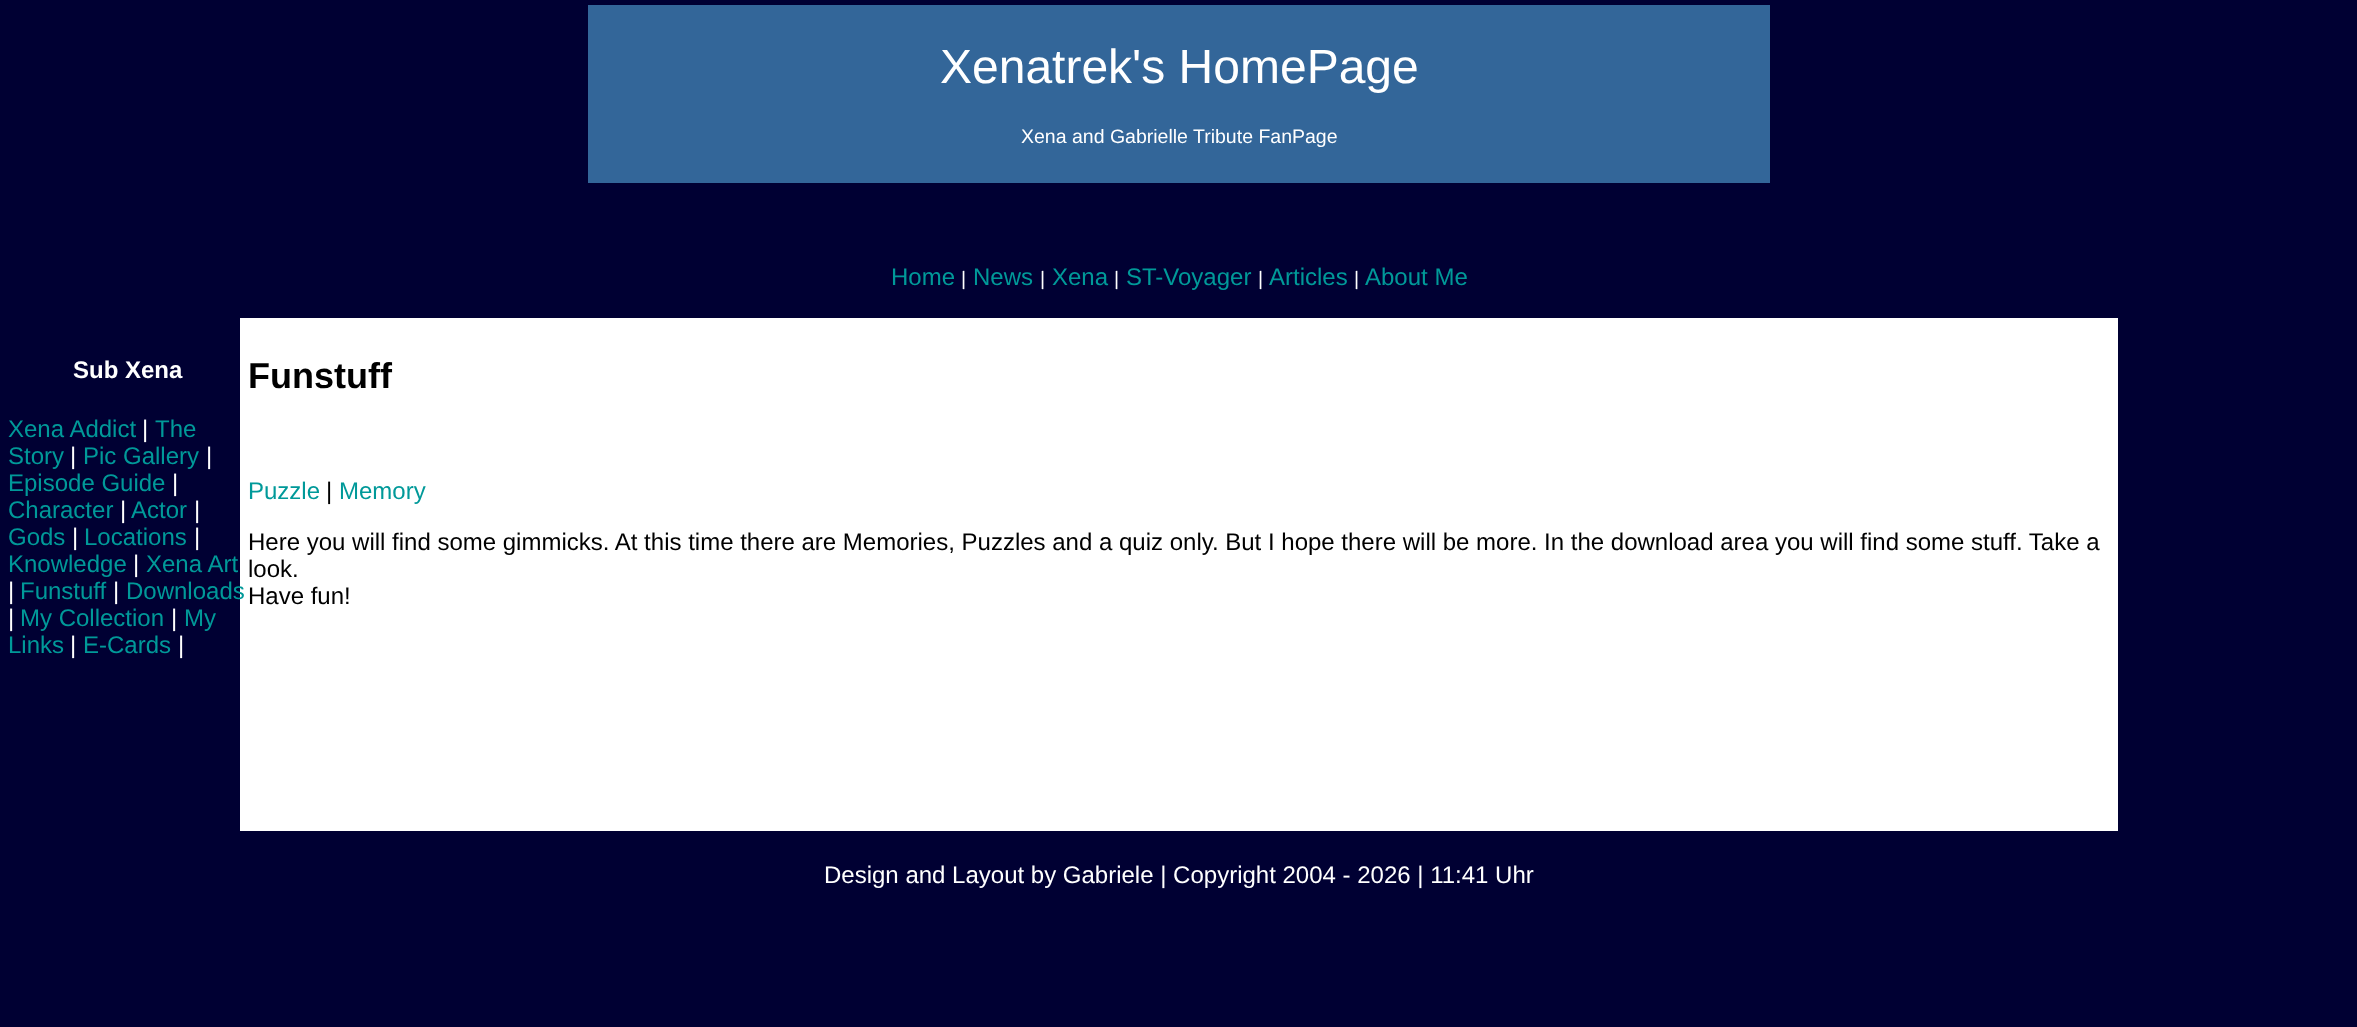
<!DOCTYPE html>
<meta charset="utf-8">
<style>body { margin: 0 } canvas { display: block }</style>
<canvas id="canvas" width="2357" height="1027"></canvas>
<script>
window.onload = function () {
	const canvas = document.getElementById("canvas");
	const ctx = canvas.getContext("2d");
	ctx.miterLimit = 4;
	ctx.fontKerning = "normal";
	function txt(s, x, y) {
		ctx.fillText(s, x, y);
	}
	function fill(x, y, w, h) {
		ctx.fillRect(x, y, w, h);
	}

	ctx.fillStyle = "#000033";
	fill(0, 0, 2357, 1027);
	ctx.fillStyle = "#336699";
	fill(588, 5, 1182, 178);
	ctx.fillStyle = "#FFFFFF";
	fill(240, 318, 1878, 513);
	ctx.font = "48px Liberation Sans";
	txt("Xenatrek's HomePage", 940, 83);
	ctx.font = "19.5px Liberation Sans";
	txt("Xena and Gabrielle Tribute FanPage", 1021, 143);
	ctx.font = "24px Liberation Sans";
	ctx.fillStyle = "#009999";
	txt("Home", 891, 285);
	ctx.font = "19.5px Liberation Sans";
	ctx.fillStyle = "#FFFFFF";
	txt("|", 961, 285);
	ctx.font = "24px Liberation Sans";
	ctx.fillStyle = "#009999";
	txt("News", 973, 285);
	ctx.font = "19.5px Liberation Sans";
	ctx.fillStyle = "#FFFFFF";
	txt("|", 1040, 285);
	ctx.font = "24px Liberation Sans";
	ctx.fillStyle = "#009999";
	txt("Xena", 1052, 285);
	ctx.font = "19.5px Liberation Sans";
	ctx.fillStyle = "#FFFFFF";
	txt("|", 1114, 285);
	ctx.font = "24px Liberation Sans";
	ctx.fillStyle = "#009999";
	txt("ST-Voyager", 1126, 285);
	ctx.font = "19.5px Liberation Sans";
	ctx.fillStyle = "#FFFFFF";
	txt("|", 1258, 285);
	ctx.font = "24px Liberation Sans";
	ctx.fillStyle = "#009999";
	txt("Articles", 1269, 285);
	ctx.font = "19.5px Liberation Sans";
	ctx.fillStyle = "#FFFFFF";
	txt("|", 1354, 285);
	ctx.font = "24px Liberation Sans";
	ctx.fillStyle = "#009999";
	txt("About Me", 1365, 285);
	ctx.font = "bold 24px Liberation Sans";
	ctx.fillStyle = "#FFFFFF";
	txt("Sub Xena", 73, 378);
	ctx.font = "24px Liberation Sans";
	ctx.fillStyle = "#009999";
	txt("Xena Addict", 8, 437);
	ctx.fillStyle = "#FFFFFF";
	txt("|", 142, 437);
	ctx.fillStyle = "#009999";
	txt("The", 155, 437);
	txt("Story", 8, 464);
	ctx.fillStyle = "#FFFFFF";
	txt("|", 70, 464);
	ctx.fillStyle = "#009999";
	txt("Pic Gallery", 83, 464);
	ctx.fillStyle = "#FFFFFF";
	txt("|", 206, 464);
	ctx.fillStyle = "#009999";
	txt("Episode Guide", 8, 491);
	ctx.fillStyle = "#FFFFFF";
	txt("|", 172, 491);
	ctx.fillStyle = "#009999";
	txt("Character", 8, 518);
	ctx.fillStyle = "#FFFFFF";
	txt("|", 120, 518);
	ctx.fillStyle = "#009999";
	txt("Actor", 131, 518);
	ctx.fillStyle = "#FFFFFF";
	txt("|", 194, 518);
	ctx.fillStyle = "#009999";
	txt("Gods", 8, 545);
	ctx.fillStyle = "#FFFFFF";
	txt("|", 72, 545);
	ctx.fillStyle = "#009999";
	txt("Locations", 84, 545);
	ctx.fillStyle = "#FFFFFF";
	txt("|", 194, 545);
	ctx.fillStyle = "#009999";
	txt("Knowledge", 8, 572);
	ctx.fillStyle = "#FFFFFF";
	txt("|", 133, 572);
	ctx.fillStyle = "#009999";
	txt("Xena Art", 146, 572);
	ctx.fillStyle = "#FFFFFF";
	txt("|", 8, 599);
	ctx.fillStyle = "#009999";
	txt("Funstuff", 20, 599);
	ctx.fillStyle = "#FFFFFF";
	txt("|", 113, 599);
	ctx.fillStyle = "#009999";
	txt("Downloads", 126, 599);
	ctx.fillStyle = "#FFFFFF";
	txt("|", 8, 626);
	ctx.fillStyle = "#009999";
	txt("My Collection", 20, 626);
	ctx.fillStyle = "#FFFFFF";
	txt("|", 171, 626);
	ctx.fillStyle = "#009999";
	txt("My", 184, 626);
	txt("Links", 8, 653);
	ctx.fillStyle = "#FFFFFF";
	txt("|", 70, 653);
	ctx.fillStyle = "#009999";
	txt("E-Cards", 83, 653);
	ctx.fillStyle = "#FFFFFF";
	txt("|", 178, 653);
	ctx.font = "bold 36px Liberation Sans";
	ctx.fillStyle = "#000000";
	txt("Funstuff", 248, 388);
	ctx.font = "24px Liberation Sans";
	ctx.fillStyle = "#009999";
	txt("Puzzle", 248, 499);
	ctx.fillStyle = "#000000";
	txt("|", 326, 499);
	ctx.fillStyle = "#009999";
	txt("Memory", 339, 499);
	ctx.fillStyle = "#000000";
	txt("Here you will find some gimmicks. At this time there are Memories, Puzzles and a quiz only. But I hope there will be more. In the download area you will find some stuff. Take a", 248, 550);
	txt("look.", 248, 577);
	txt("Have fun!", 248, 604);
	ctx.fillStyle = "#FFFFFF";
	txt("Design and Layout by Gabriele | Copyright 2004 - 2026 | 11:41 Uhr", 824, 883);
};
</script>
